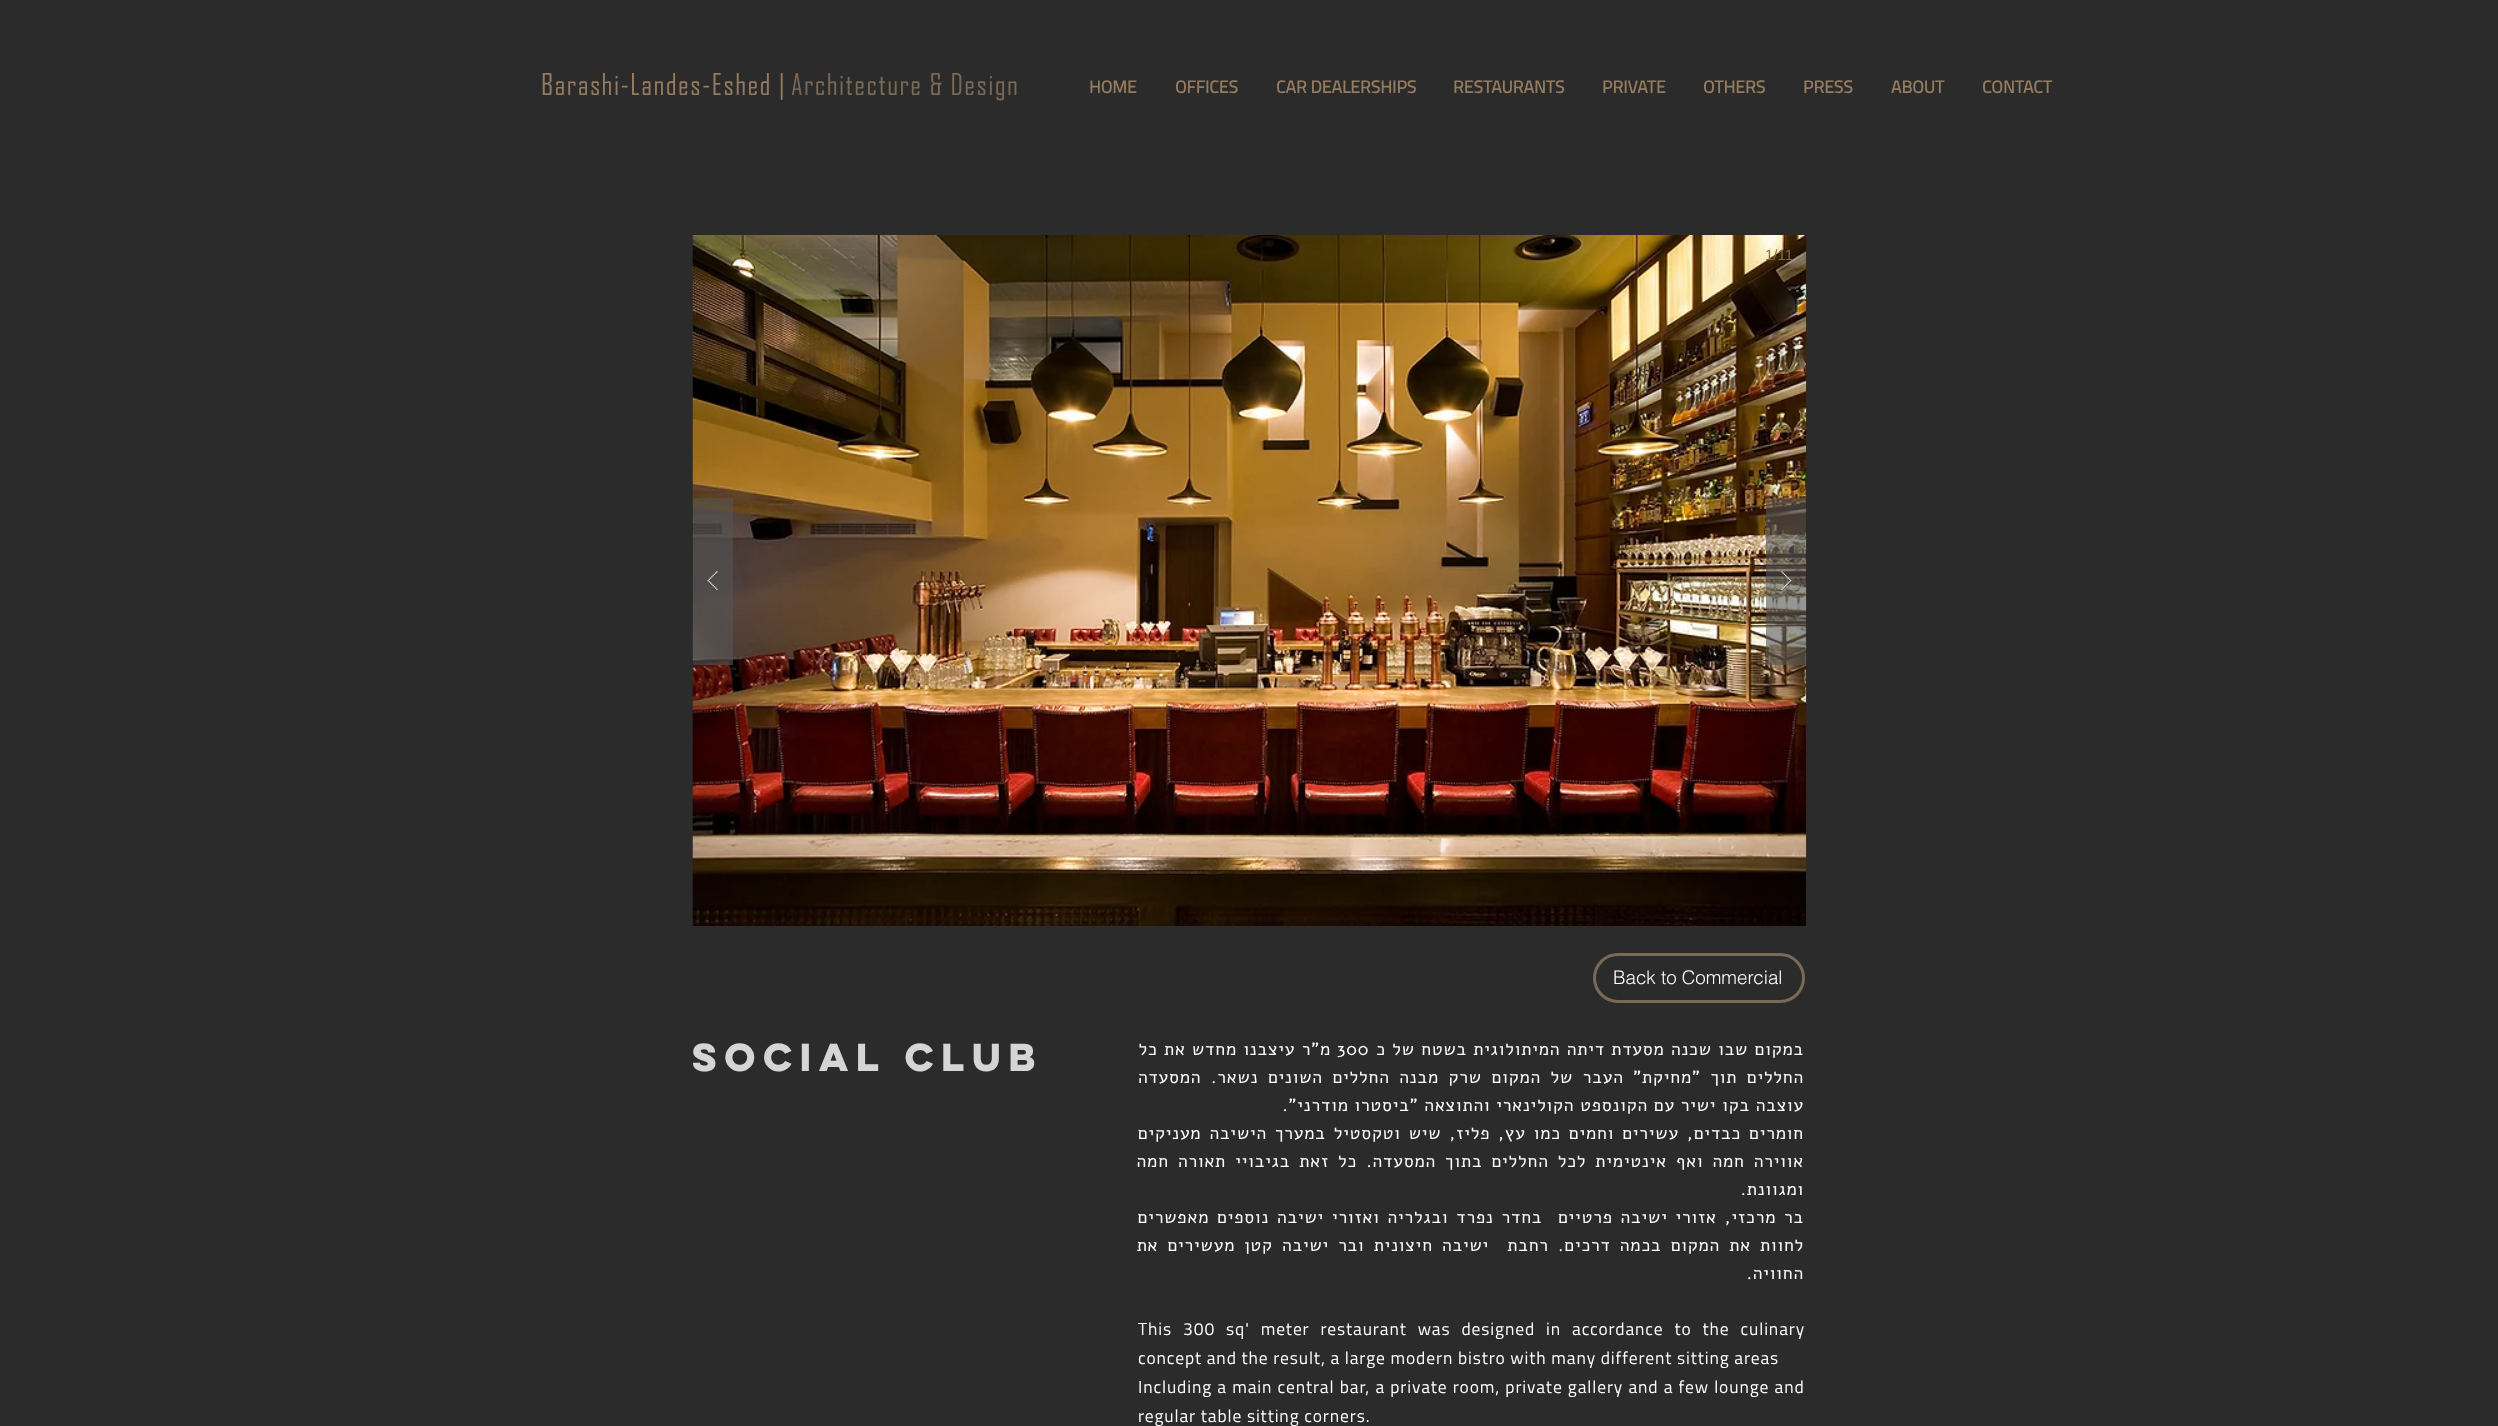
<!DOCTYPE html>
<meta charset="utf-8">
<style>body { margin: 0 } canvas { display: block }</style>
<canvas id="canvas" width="2498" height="1426"></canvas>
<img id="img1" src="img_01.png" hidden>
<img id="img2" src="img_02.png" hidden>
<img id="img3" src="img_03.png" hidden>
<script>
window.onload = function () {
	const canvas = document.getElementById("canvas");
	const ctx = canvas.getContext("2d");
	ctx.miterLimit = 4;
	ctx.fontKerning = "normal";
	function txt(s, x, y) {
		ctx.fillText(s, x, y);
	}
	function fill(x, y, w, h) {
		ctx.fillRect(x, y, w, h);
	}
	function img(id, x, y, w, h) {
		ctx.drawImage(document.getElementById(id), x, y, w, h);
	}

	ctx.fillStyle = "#2B2B2B";
	fill(0, 0, 2498, 1426);
	img("img1", 692, 235, 1115, 691);
	ctx.fillStyle = "rgba(85, 85, 85, 0.6)";
	fill(1766, 498, 40, 167);
	img("img2", 1781, 571, 11, 21);
	fill(693, 498, 40, 167);
	img("img3", 707, 571, 11, 21);
	ctx.beginPath();
	ctx.roundRect(1594.5, 954.5, 209, 47, 23.5);
	ctx.strokeStyle = "#7A6957";
	ctx.lineWidth = 3;
	ctx.stroke();
	ctx.font = "bold 17.5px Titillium";
	ctx.fillStyle = "#957B5F";
	txt("CONTACT", 1982, 93);
	txt("ABOUT", 1891, 93);
	txt("PRESS", 1803, 93);
	txt("OTHERS", 1703, 93);
	txt("PRIVATE", 1602, 93);
	txt("RESTAURANTS", 1453, 93);
	txt("CAR DEALERSHIPS", 1276, 93);
	txt("OFFICES", 1175, 93);
	txt("HOME", 1089, 93);
	ctx.letterSpacing = "1.4px";
	ctx.font = "28.75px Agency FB";
	ctx.fillStyle = "#7A6957";
	txt("Architecture & Design", 791, 95);
	ctx.fillStyle = "#957B5F";
	txt("Barashi-Landes-Eshed |", 541, 95);
	ctx.letterSpacing = "0px";
	ctx.font = "15px Liberation Sans";
	ctx.fillStyle = "#7F6C4D";
	txt("1/11", 1765, 260);
	ctx.font = "300 18.75px helvetica";
	ctx.fillStyle = "#FFFFFF";
	txt("Back to Commercial", 1613, 984);
	ctx.letterSpacing = "0.88px";
	ctx.wordSpacing = "0.5px";
	ctx.direction = "rtl";
	ctx.font = "17.5px Alef";
	txt("במקום שבו שכנה מסעדת דיתה המיתולוגית בשטח של כ", 1804, 1055);
	ctx.wordSpacing = "0px";
	ctx.direction = "ltr";
	txt("300", 1337, 1055);
	ctx.wordSpacing = "0.5px";
	ctx.direction = "rtl";
	txt("מ\"ר עיצבנו מחדש את כל", 1331, 1055);
	ctx.wordSpacing = "3.75px";
	txt("החללים תוך \"מחיקת\" העבר של המקום שרק מבנה החללים השונים נשאר. המסעדה", 1804, 1083);
	ctx.wordSpacing = "0px";
	txt("עוצבה בקו ישיר עם הקונספט הקולינארי והתוצאה \"ביסטרו מודרני\".", 1804, 1111);
	ctx.wordSpacing = "2.1px";
	txt("חומרים כבדים, עשירים וחמים כמו עץ, פליז, שיש וטקסטיל במערך הישיבה מעניקים", 1804, 1139);
	ctx.wordSpacing = "3.25px";
	txt("אווירה חמה ואף אינטימית לכל החללים בתוך המסעדה. כל זאת בגיבויי תאורה חמה", 1804, 1167);
	ctx.wordSpacing = "0px";
	txt("ומגוונת.", 1804, 1195);
	ctx.wordSpacing = "2px";
	txt("בר מרכזי, אזורי ישיבה פרטיים  בחדר נפרד ובגלריה ואזורי ישיבה נוספים מאפשרים", 1804, 1223);
	ctx.wordSpacing = "3.25px";
	txt("לחוות את המקום בכמה דרכים. רחבת  ישיבה חיצונית ובר ישיבה קטן מעשירים את", 1804, 1251);
	ctx.wordSpacing = "0px";
	txt("החוויה.", 1804, 1279);
	ctx.letterSpacing = "0px";
	ctx.direction = "ltr";
	ctx.font = "bold 35px 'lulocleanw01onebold'";
	ctx.fillStyle = "#D5D5D5";
	txt("Social Club", 692, 1071);
	ctx.letterSpacing = "0.88px";
	ctx.wordSpacing = "6.25px";
	ctx.font = "17.5px Titillium";
	ctx.fillStyle = "#FFFFFF";
	txt("This 300 sq' meter restaurant was designed in accordance to the culinary", 1138, 1335);
	ctx.wordSpacing = "0px";
	txt("concept and the result, a large modern bistro with many different sitting areas", 1138, 1364);
	ctx.wordSpacing = "0.5px";
	txt("Including a main central bar, a private room, private gallery and a few lounge and", 1138, 1393);
	ctx.wordSpacing = "0px";
	txt("regular table sitting corners.", 1138, 1422);
};
</script>
